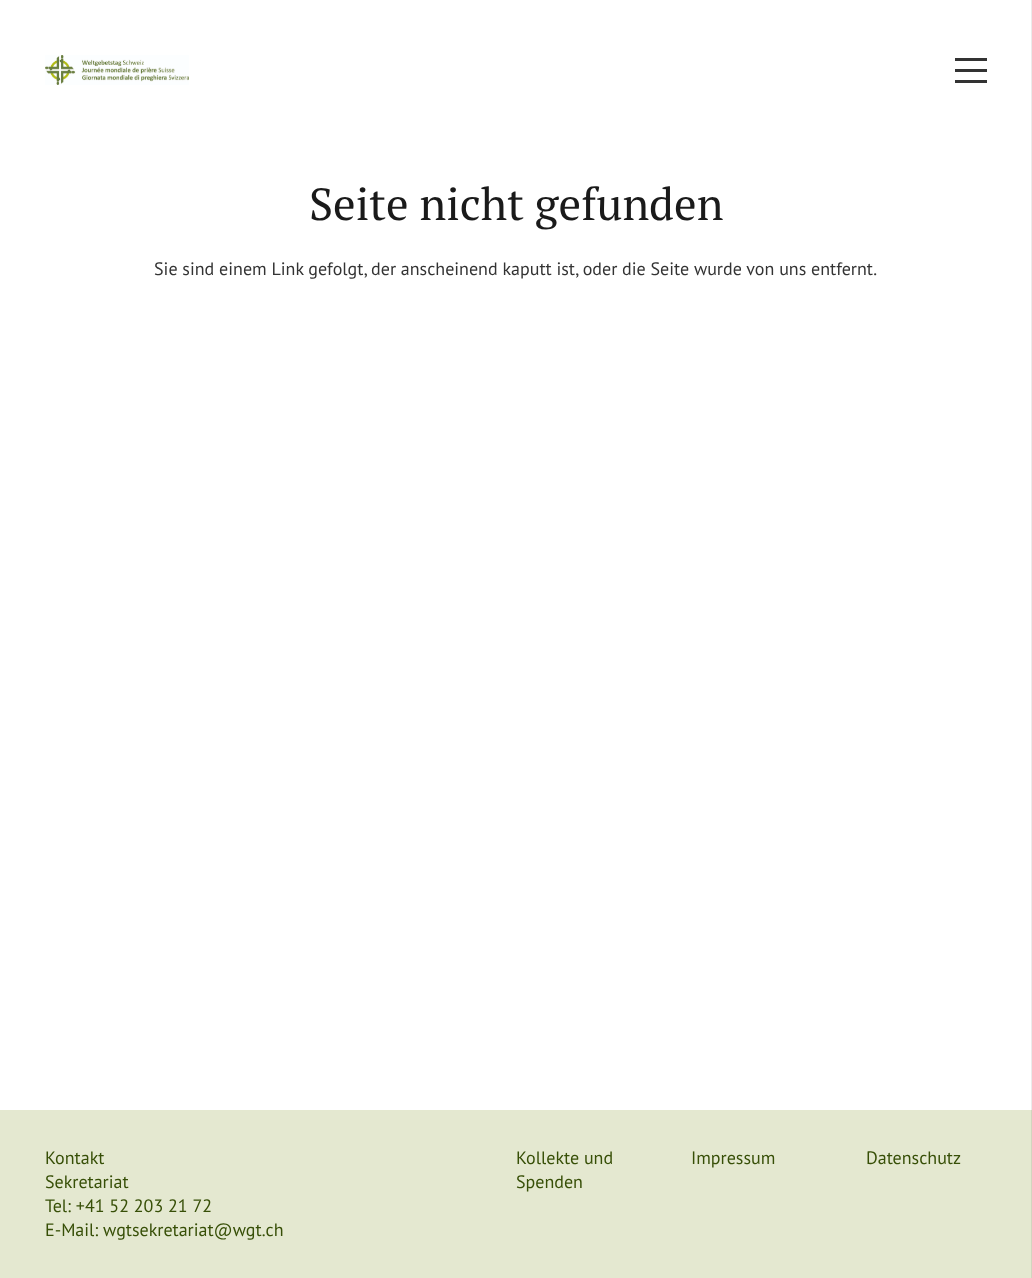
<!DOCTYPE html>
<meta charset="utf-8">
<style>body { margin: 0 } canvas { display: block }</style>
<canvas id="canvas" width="1032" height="1278"></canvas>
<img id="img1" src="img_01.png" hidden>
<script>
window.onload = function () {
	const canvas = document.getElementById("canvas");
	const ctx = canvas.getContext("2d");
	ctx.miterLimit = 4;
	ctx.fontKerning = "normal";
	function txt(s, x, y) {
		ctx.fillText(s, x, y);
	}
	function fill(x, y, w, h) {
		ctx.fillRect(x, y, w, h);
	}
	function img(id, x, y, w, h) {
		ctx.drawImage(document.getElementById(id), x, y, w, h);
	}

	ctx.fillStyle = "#FFFFFF";
	fill(0, 0, 1032, 1278);
	ctx.fillStyle = "#EBEBEB";
	fill(1031, 0, 1, 1110);
	img("img1", 45, 55, 144, 30);
	ctx.fillStyle = "#333333";
	fill(955, 69, 32, 3);
	fill(955, 58, 32, 3);
	fill(955, 80, 32, 3);
	ctx.fillStyle = "#E4E8D0";
	fill(0, 1110, 1031, 168);
	ctx.fillStyle = "#D2D5BF";
	fill(1031, 1110, 1, 168);
	ctx.font = "45px PT Serif";
	ctx.fillStyle = "#1A1A1A";
	txt("Seite nicht gefunden", 309, 220);
	ctx.font = "18px PT Sans";
	ctx.fillStyle = "#333333";
	txt("Sie sind einem Link gefolgt, der anscheinend kaputt ist, oder die Seite wurde von uns entfernt.", 154, 275);
	ctx.fillStyle = "#374F07";
	txt("Kontakt", 45, 1164);
	txt("Sekretariat", 45, 1188);
	txt("Tel: +41 52 203 21 72", 45, 1212);
	txt("E-Mail: wgtsekretariat@wgt.ch", 45, 1236);
	txt("Kollekte und", 516, 1164);
	txt("Spenden", 516, 1188);
	txt("Impressum", 691, 1164);
	txt("Datenschutz", 866, 1164);
};
</script>
